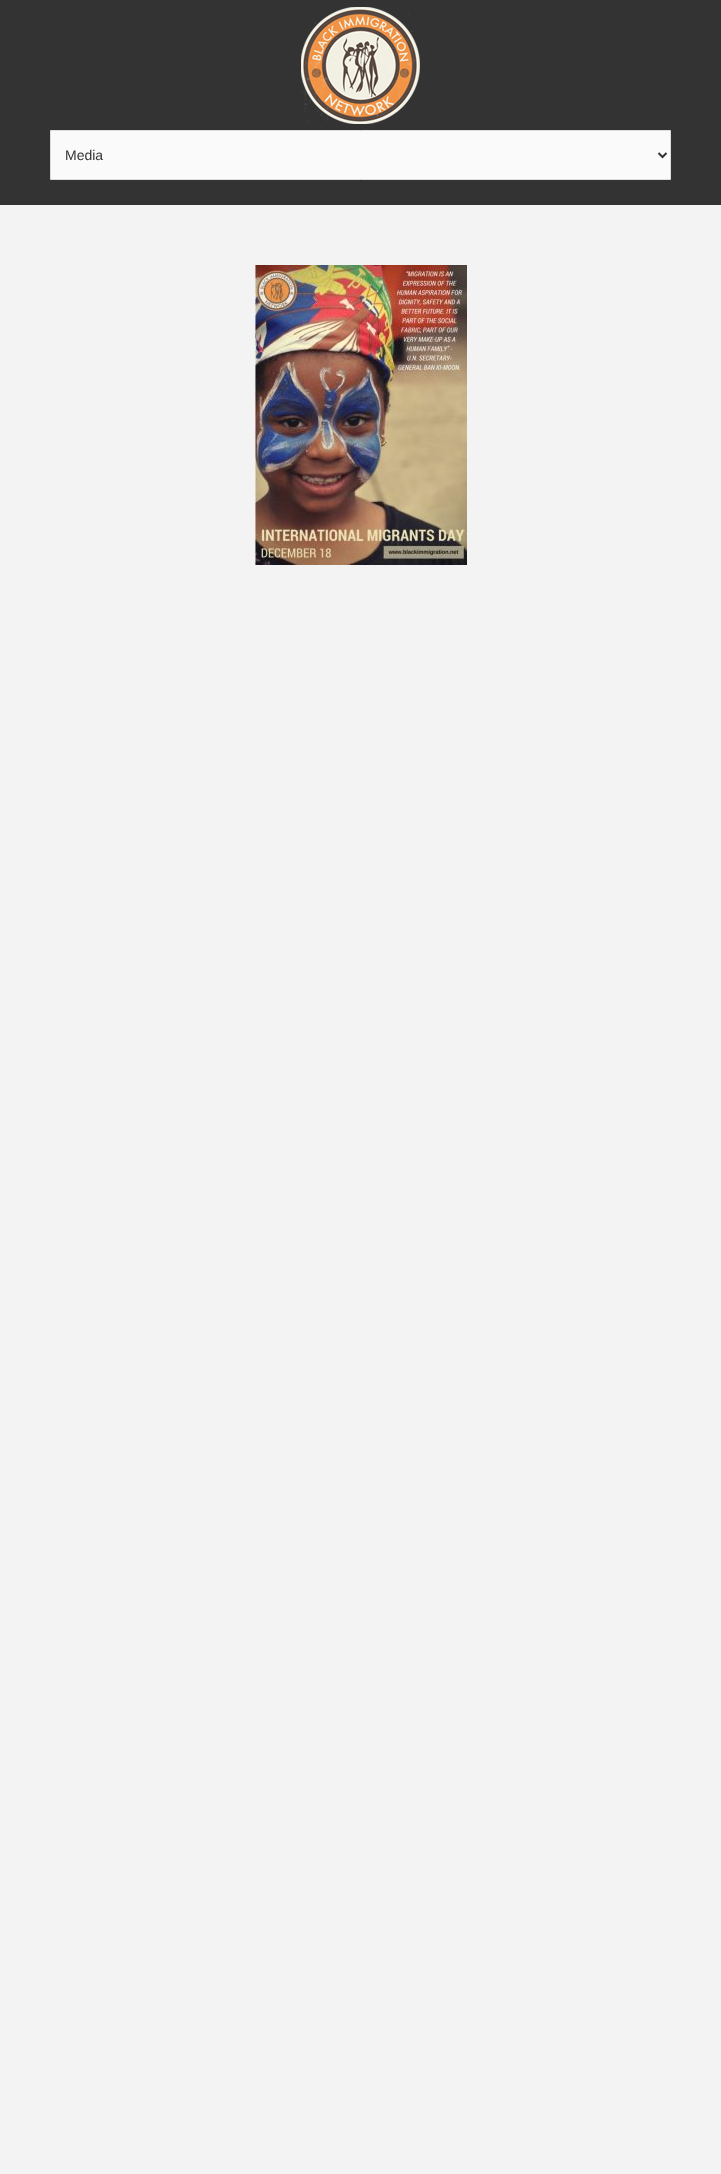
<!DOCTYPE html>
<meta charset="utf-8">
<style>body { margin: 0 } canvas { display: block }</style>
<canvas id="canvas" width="721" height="2174"></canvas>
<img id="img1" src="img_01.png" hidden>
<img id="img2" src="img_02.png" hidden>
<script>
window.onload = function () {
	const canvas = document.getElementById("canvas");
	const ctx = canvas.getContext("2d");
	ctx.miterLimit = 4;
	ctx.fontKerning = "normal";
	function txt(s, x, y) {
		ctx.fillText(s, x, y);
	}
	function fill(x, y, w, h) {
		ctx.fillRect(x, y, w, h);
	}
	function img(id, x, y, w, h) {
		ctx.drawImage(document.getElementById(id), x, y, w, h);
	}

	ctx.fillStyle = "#F3F3F3";
	fill(0, 0, 721, 2174);
	ctx.fillStyle = "#333333";
	fill(0, 0, 721, 205);
	img("img1", 301, 7, 119, 117);
	ctx.fillStyle = "#FAFAFA";
	ctx.beginPath();
	ctx.rect(50.5, 130.5, 620, 49);
	ctx.fill();
	ctx.strokeStyle = "#DDDDDD";
	ctx.stroke();
	ctx.beginPath();
	ctx.moveTo(658.5, 153);
	ctx.lineTo(662.5, 157);
	ctx.lineTo(666.5, 153);
	ctx.strokeStyle = "#333333";
	ctx.lineWidth = 2;
	ctx.stroke();
	img("img2", 255, 265, 212, 300);
	ctx.font = "14px Liberation Sans";
	ctx.fillStyle = "#333333";
	txt("Media", 65, 160);
};
</script>
